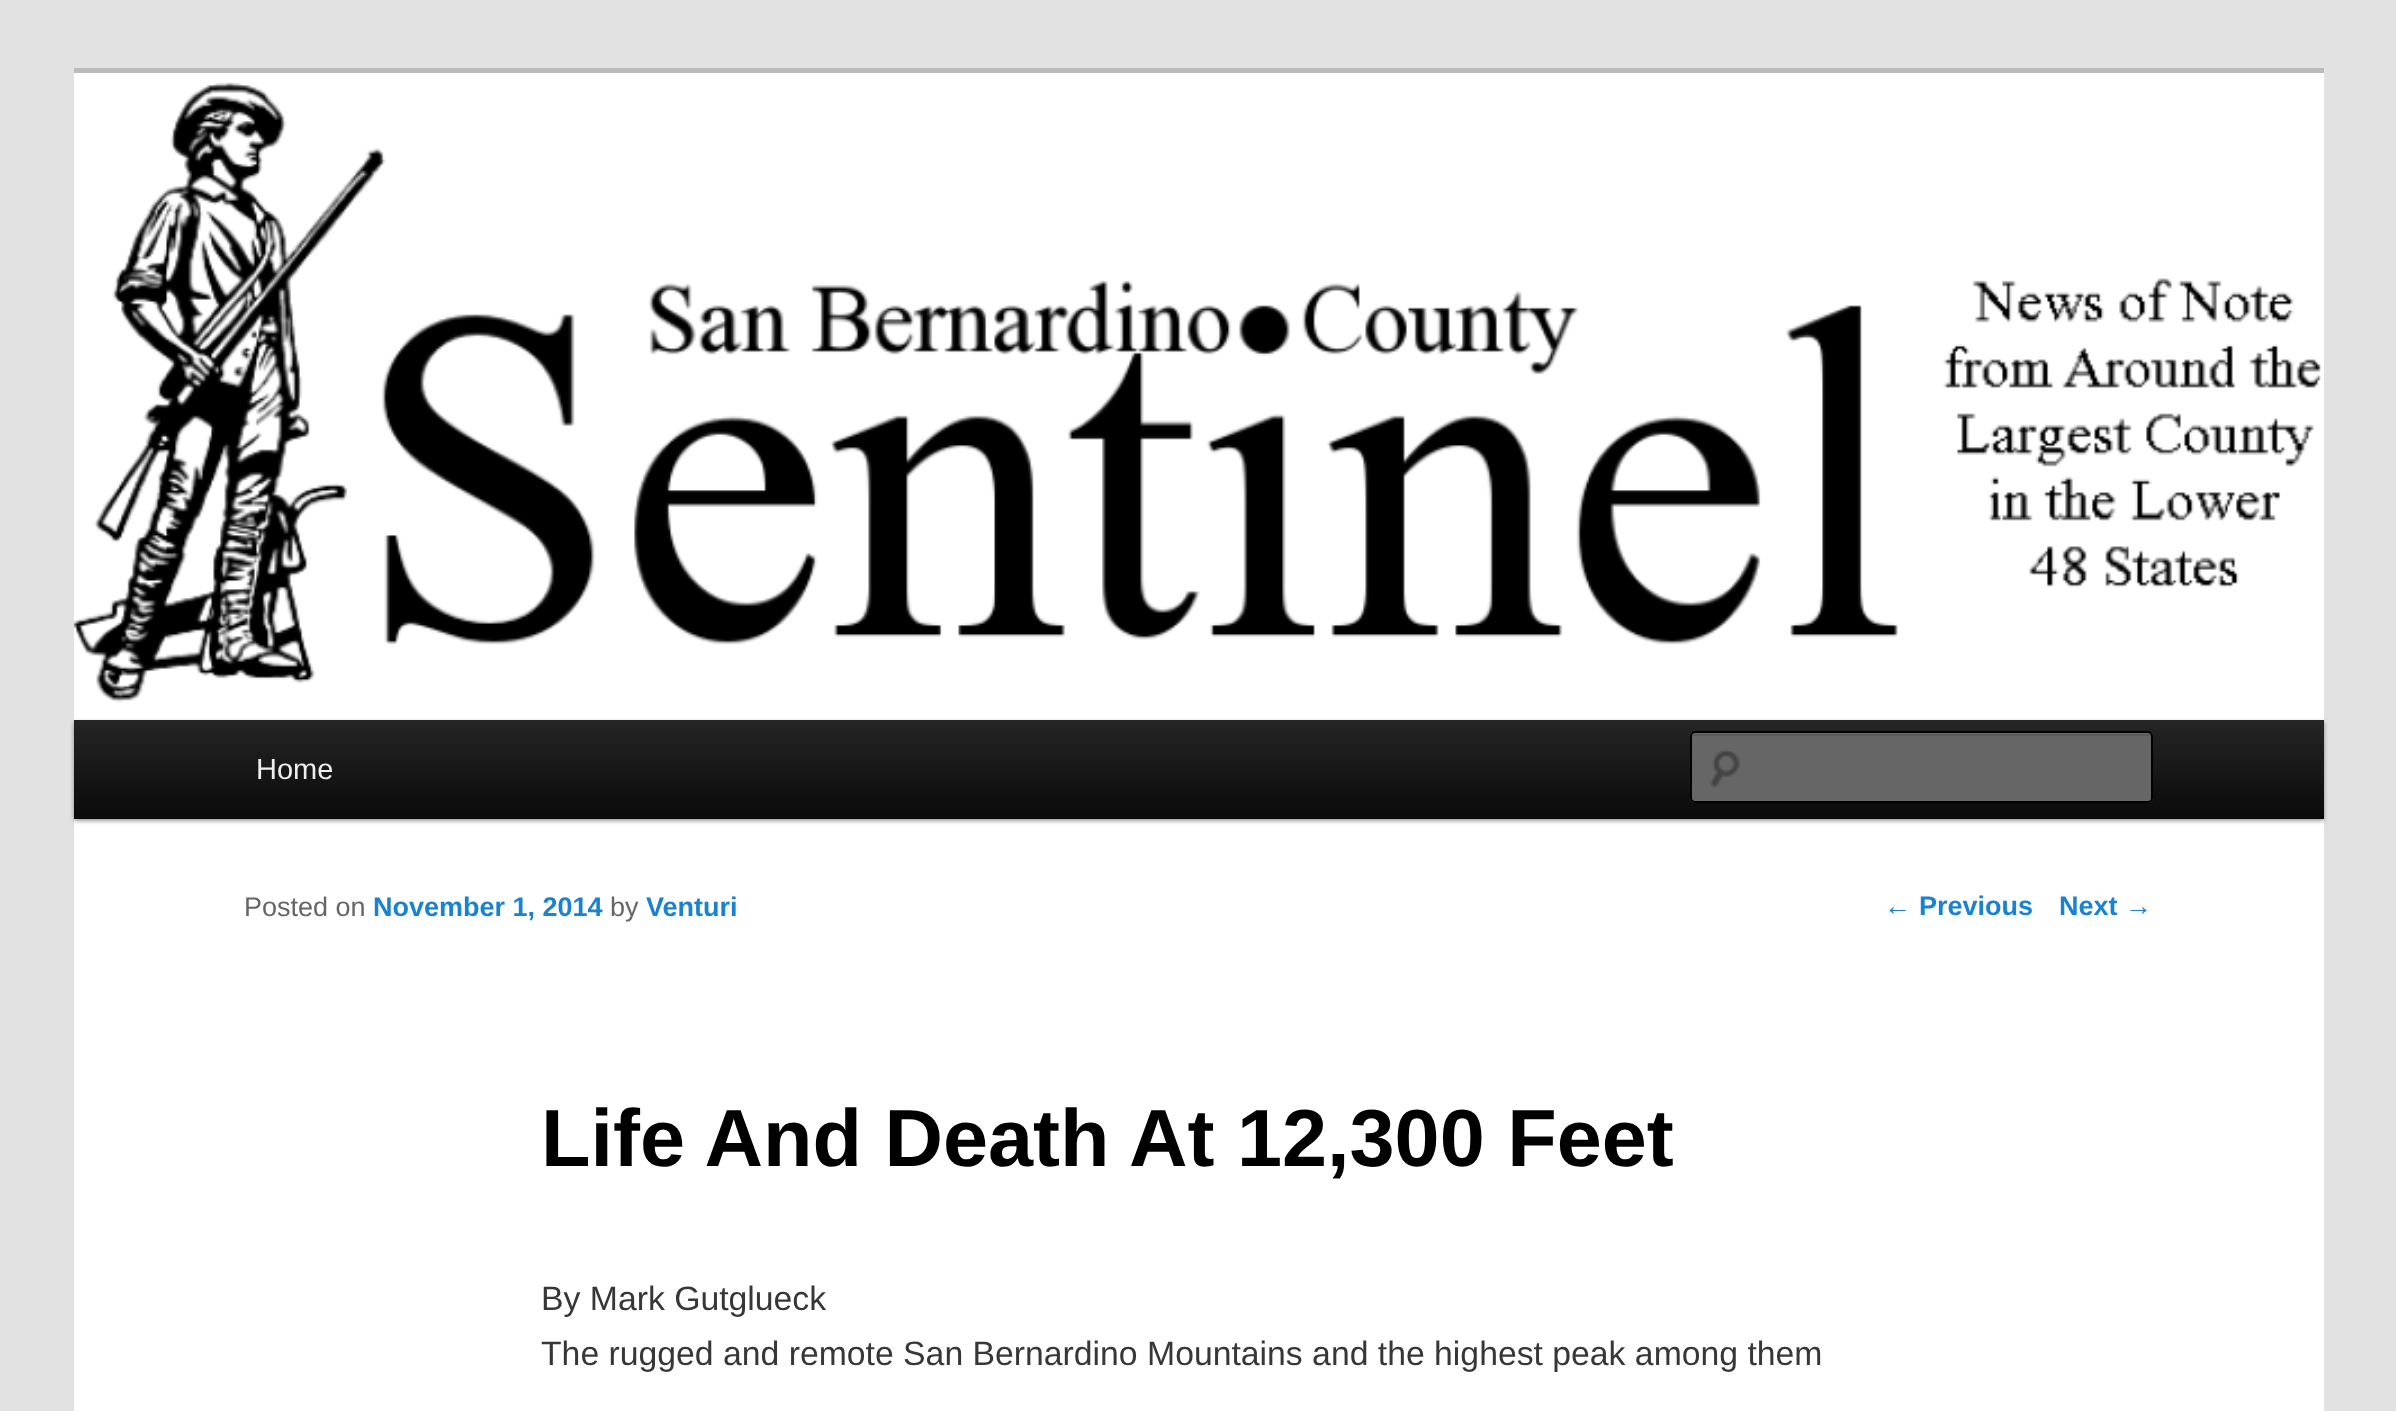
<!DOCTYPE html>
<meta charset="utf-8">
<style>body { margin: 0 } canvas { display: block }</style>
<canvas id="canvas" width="2396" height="1411"></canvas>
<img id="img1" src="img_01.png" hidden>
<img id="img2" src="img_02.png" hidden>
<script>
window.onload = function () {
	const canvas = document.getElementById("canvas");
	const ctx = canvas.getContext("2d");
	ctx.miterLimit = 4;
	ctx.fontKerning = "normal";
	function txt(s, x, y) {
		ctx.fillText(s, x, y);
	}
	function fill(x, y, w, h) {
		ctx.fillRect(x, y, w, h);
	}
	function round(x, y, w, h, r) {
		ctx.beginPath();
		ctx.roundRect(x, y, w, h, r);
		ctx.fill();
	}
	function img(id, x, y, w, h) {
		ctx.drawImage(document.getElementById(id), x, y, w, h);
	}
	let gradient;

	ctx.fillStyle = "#E2E2E2";
	fill(0, 0, 2396, 1411);
	ctx.fillStyle = "#FFFFFF";
	fill(74, 73, 2250, 1338);
	ctx.fillStyle = "#BBBBBB";
	fill(74, 68, 2250, 5);
	img("img1", 74, 82, 2247, 621);
	ctx.fillStyle = "rgba(0, 0, 0, 0.4)";
	ctx.filter = "blur(2px)";
	ctx.beginPath();
	ctx.rect(74, 722, 2250, 99);
	ctx.fill();
	ctx.filter = "none";
	gradient = ctx.createLinearGradient(1199, 720, 1199, 819);
	gradient.addColorStop(0, "#252525");
	gradient.addColorStop(1, "#0A0A0A");
	ctx.fillStyle = gradient;
	fill(74, 720, 2250, 99);
	ctx.fillStyle = "#666666";
	round(1690, 731, 463, 72, 5);
	img("img2", 1710, 750, 30, 38);
	ctx.fillStyle = "#5C5C5C";
	ctx.beginPath();
	ctx.moveTo(1694, 736);
	ctx.lineTo(2149, 736);
	ctx.bezierCurveTo(2150, 736, 2151, 737, 2151, 738);
	ctx.lineTo(2151, 735);
	ctx.lineTo(2150, 734);
	ctx.lineTo(1694, 734);
	ctx.bezierCurveTo(1692, 734, 1692, 736, 1692, 738);
	ctx.bezierCurveTo(1692, 737, 1693, 736, 1694, 736);
	ctx.closePath();
	ctx.fill();
	ctx.beginPath();
	ctx.roundRect(1691, 732, 461, 70, 4);
	ctx.strokeStyle = "#000000";
	ctx.lineWidth = 2;
	ctx.stroke();
	ctx.font = "29px Liberation Sans";
	ctx.fillStyle = "#EEEEEE";
	txt("Home", 256, 779);
	ctx.font = "27px Liberation Sans";
	ctx.fillStyle = "#666666";
	txt("Posted on", 244, 916);
	ctx.font = "bold 27px Liberation Sans";
	ctx.fillStyle = "#1982D1";
	txt("November 1, 2014", 373, 916);
	ctx.font = "27px Liberation Sans";
	ctx.fillStyle = "#666666";
	txt("by", 610, 916);
	ctx.font = "bold 27px Liberation Sans";
	ctx.fillStyle = "#1982D1";
	txt("Venturi", 646, 916);
	ctx.font = "bold 81px Liberation Sans";
	ctx.fillStyle = "#000000";
	txt("Life And Death At 12,300 Feet", 541, 1166);
	ctx.font = "33.75px Liberation Sans";
	ctx.fillStyle = "#373737";
	txt("By Mark Gutglueck", 541, 1310);
	txt("The rugged and remote San Bernardino Mountains and the highest peak among them", 541, 1365);
	ctx.font = "27px Liberation Sans";
	ctx.fillStyle = "#1982D1";
	txt("←", 1884, 915);
	ctx.font = "bold 27px Liberation Sans";
	txt("Previous", 1919, 915);
	txt("Next", 2059, 915);
	ctx.font = "27px Liberation Sans";
	txt("→", 2125, 915);
};
</script>
